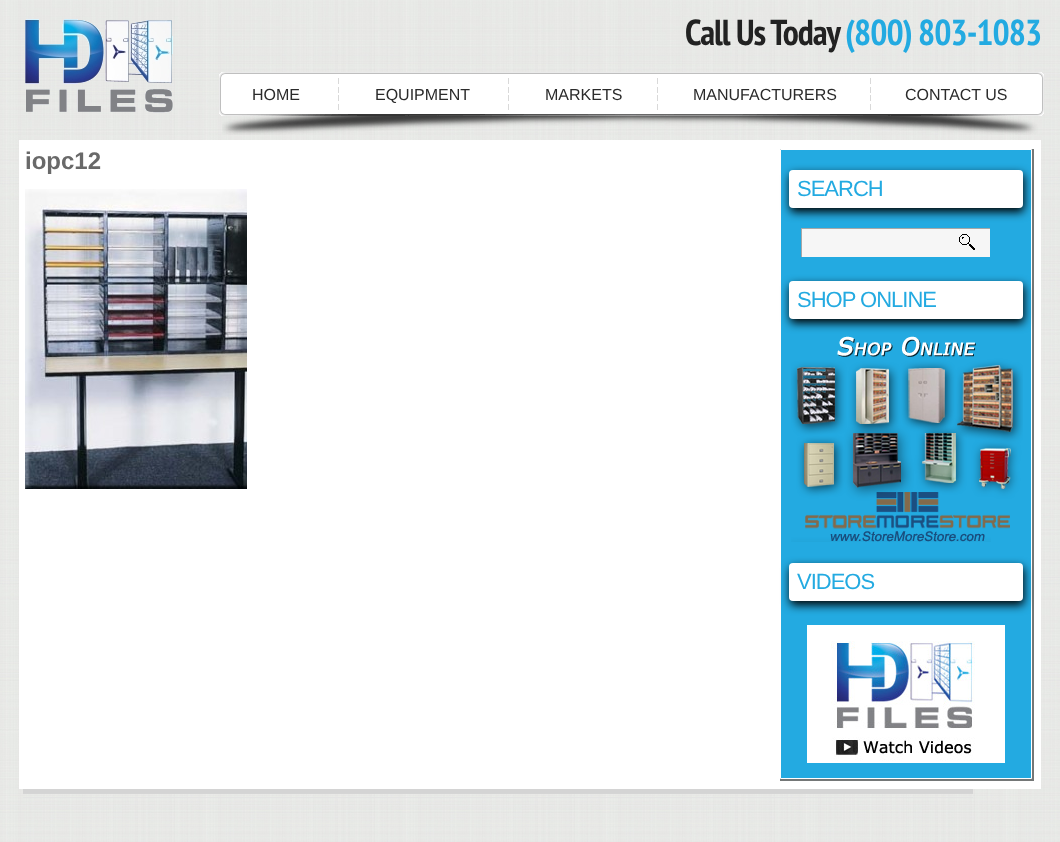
<!DOCTYPE html>
<meta charset="utf-8">
<style>body { margin: 0 } canvas { display: block }</style>
<canvas id="canvas" width="1060" height="842"></canvas>
<img id="img1" src="img_01.png" hidden>
<img id="img2" src="img_02.png" hidden>
<img id="img3" src="img_03.png" hidden>
<img id="img4" src="img_04.png" hidden>
<img id="img5" src="img_05.png" hidden>
<img id="img6" src="img_06.png" hidden>
<img id="img7" src="img_07.png" hidden>
<img id="img8" src="img_08.png" hidden>
<img id="img9" src="img_09.png" hidden>
<script>
window.onload = function () {
	const canvas = document.getElementById("canvas");
	const ctx = canvas.getContext("2d");
	ctx.miterLimit = 4;
	ctx.fontKerning = "normal";
	function txt(s, x, y) {
		ctx.fillText(s, x, y);
	}
	function fill(x, y, w, h) {
		ctx.fillRect(x, y, w, h);
	}
	function round(x, y, w, h, r) {
		ctx.beginPath();
		ctx.roundRect(x, y, w, h, r);
		ctx.fill();
	}
	function img(id, x, y, w, h) {
		ctx.drawImage(document.getElementById(id), x, y, w, h);
	}

	ctx.fillStyle = "#FFFFFF";
	fill(0, 0, 1060, 842);
	img("img1", 0, 0, 1060, 842);
	fill(19, 140, 1022, 649);
	img("img2", 19, 0, 1022, 140);
	img("img3", 25, 19, 148, 94);
	img("img4", 219, 72, 825, 63);
	img("img5", 25, 189, 222, 300);
	ctx.fillStyle = "#747777";
	ctx.filter = "blur(0.5px)";
	ctx.beginPath();
	ctx.rect(780, 149, 254, 632);
	ctx.fill();
	ctx.filter = "none";
	ctx.fillStyle = "#23AAE1";
	ctx.beginPath();
	ctx.rect(780.5, 149.5, 251, 629);
	ctx.fill();
	ctx.strokeStyle = "#FFFFFF";
	ctx.stroke();
	ctx.fillStyle = "#000000";
	ctx.filter = "blur(5px)";
	ctx.beginPath();
	ctx.roundRect(790, 174, 234, 38, 4);
	ctx.fill();
	ctx.filter = "none";
	ctx.fillStyle = "#FFFFFF";
	round(789, 170, 234, 38, 4);
	ctx.fillStyle = "#A7A7A7";
	fill(801, 228, 189, 1);
	fill(801, 228, 1, 29);
	ctx.fillStyle = "#F6F6F6";
	fill(802, 229, 188, 28);
	img("img6", 959, 234, 16, 16);
	ctx.fillStyle = "#000000";
	ctx.filter = "blur(5px)";
	ctx.beginPath();
	ctx.roundRect(790, 285, 234, 38, 4);
	ctx.fill();
	ctx.filter = "none";
	ctx.fillStyle = "#FFFFFF";
	round(789, 281, 234, 38, 4);
	img("img7", 791, 336, 232, 206);
	ctx.fillStyle = "#000000";
	ctx.filter = "blur(5px)";
	ctx.beginPath();
	ctx.roundRect(790, 567, 234, 38, 4);
	ctx.fill();
	ctx.filter = "none";
	ctx.fillStyle = "#FFFFFF";
	round(789, 563, 234, 38, 4);
	img("img8", 807, 625, 198, 138);
	img("img9", 23, 789, 950, 9);
	ctx.letterSpacing = "-1px";
	ctx.font = "bold 36px PT Sans Narrow";
	ctx.fillStyle = "#222222";
	txt("Call Us Today", 685, 45);
	ctx.fillStyle = "#23AAE1";
	txt("(800) 803-1083", 845, 45);
	ctx.letterSpacing = "0px";
	ctx.font = "16px Liberation Sans";
	ctx.fillStyle = "#2B2B2B";
	txt("HOME", 252, 100);
	txt("EQUIPMENT", 375, 100);
	txt("MARKETS", 545, 100);
	txt("MANUFACTURERS", 693, 100);
	txt("CONTACT US", 905, 100);
	ctx.font = "bold 24px Liberation Sans";
	ctx.fillStyle = "#696969";
	txt("iopc12", 25, 169);
	ctx.letterSpacing = "-1px";
	ctx.font = "22px Liberation Sans";
	ctx.fillStyle = "#23AAE1";
	txt("SEARCH", 797, 196);
	txt("SHOP ONLINE", 797, 307);
	txt("VIDEOS", 797, 589);
};
</script>
